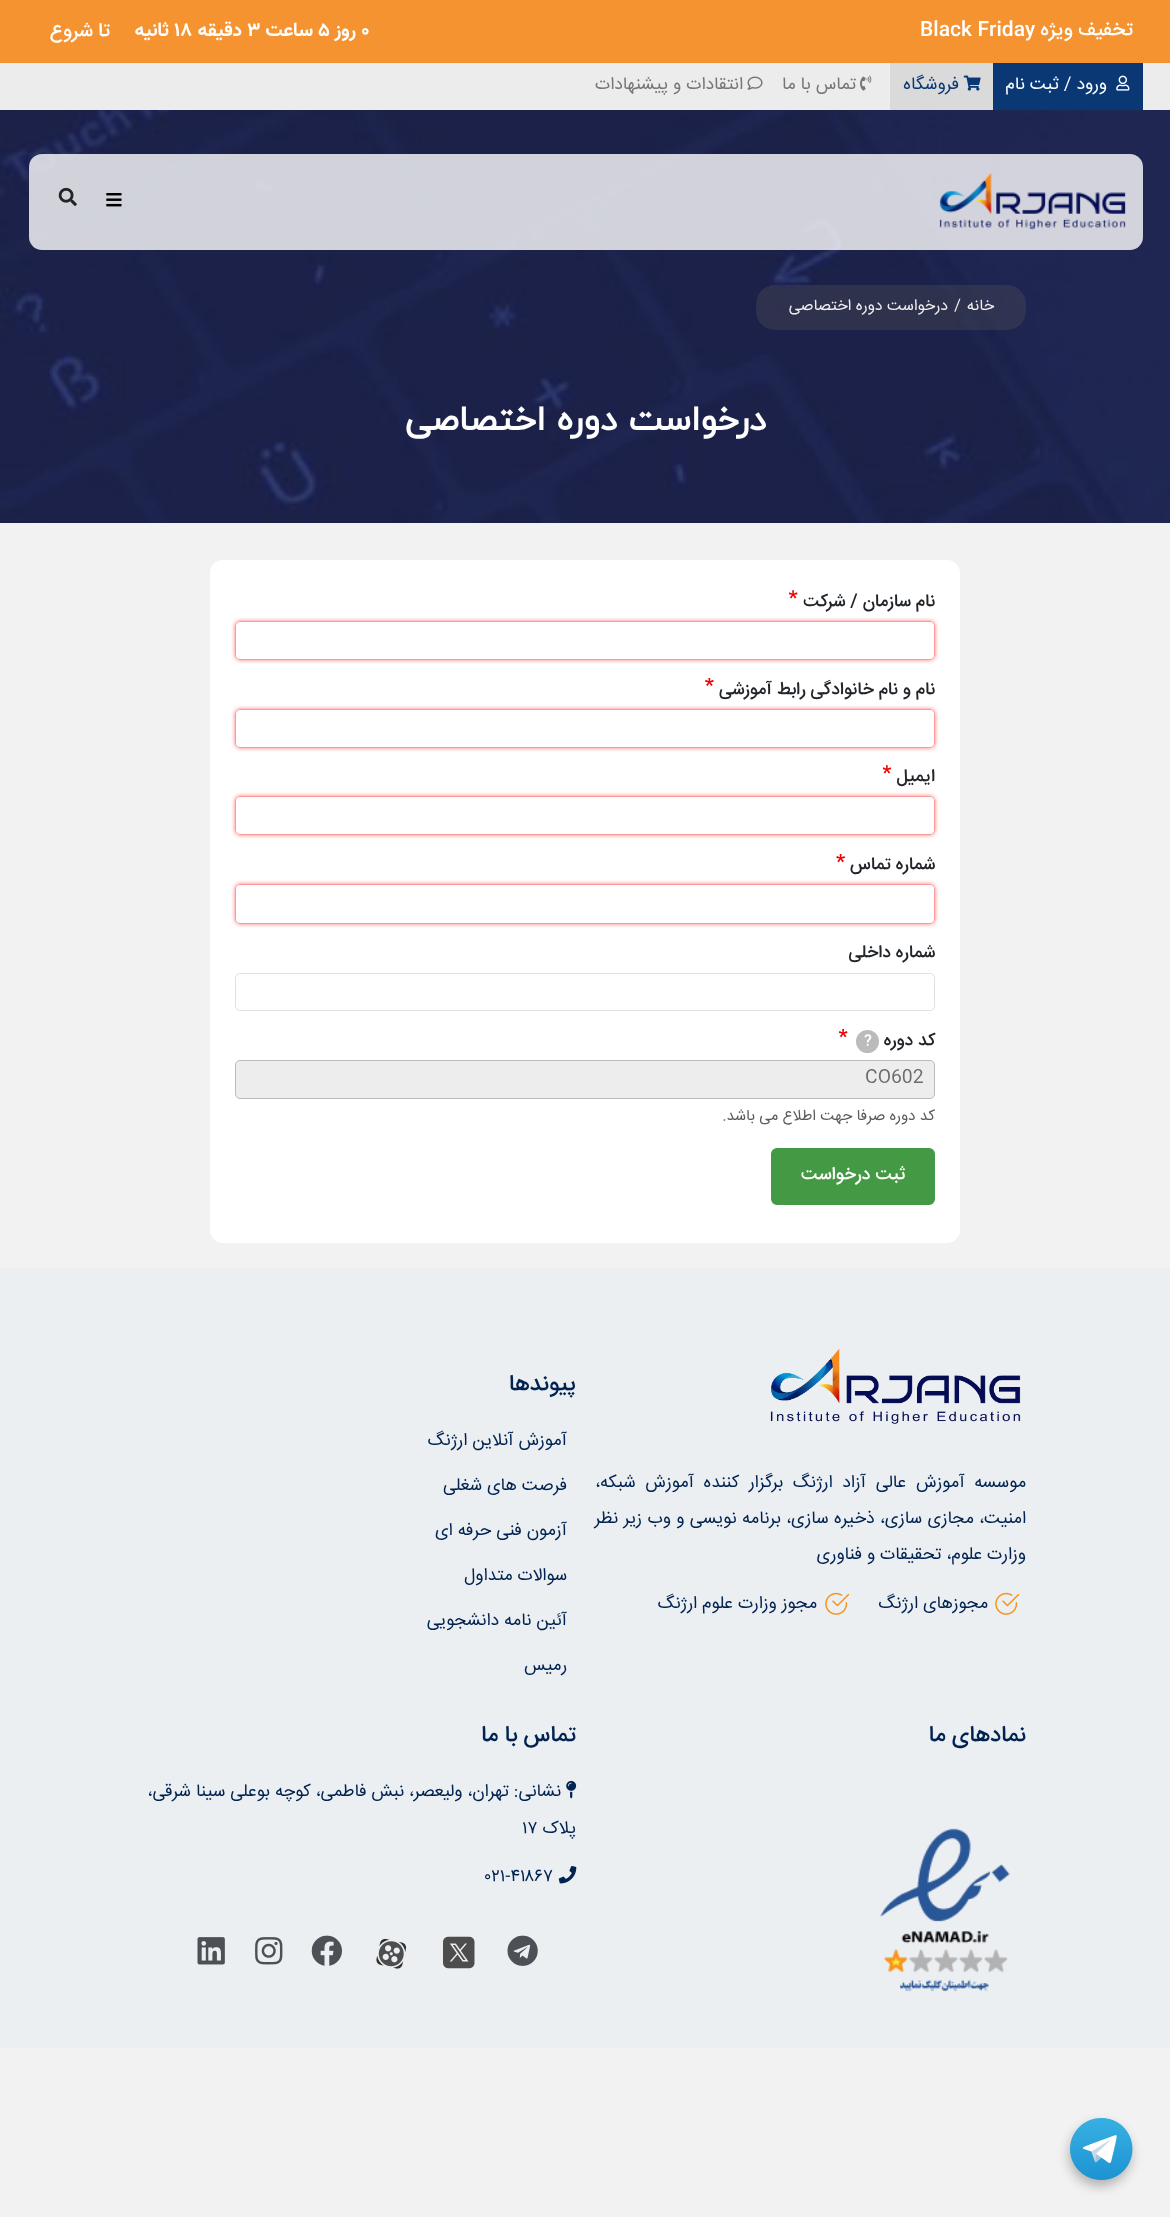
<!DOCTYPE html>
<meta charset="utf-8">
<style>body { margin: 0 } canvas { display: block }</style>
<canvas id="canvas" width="1170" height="2217"></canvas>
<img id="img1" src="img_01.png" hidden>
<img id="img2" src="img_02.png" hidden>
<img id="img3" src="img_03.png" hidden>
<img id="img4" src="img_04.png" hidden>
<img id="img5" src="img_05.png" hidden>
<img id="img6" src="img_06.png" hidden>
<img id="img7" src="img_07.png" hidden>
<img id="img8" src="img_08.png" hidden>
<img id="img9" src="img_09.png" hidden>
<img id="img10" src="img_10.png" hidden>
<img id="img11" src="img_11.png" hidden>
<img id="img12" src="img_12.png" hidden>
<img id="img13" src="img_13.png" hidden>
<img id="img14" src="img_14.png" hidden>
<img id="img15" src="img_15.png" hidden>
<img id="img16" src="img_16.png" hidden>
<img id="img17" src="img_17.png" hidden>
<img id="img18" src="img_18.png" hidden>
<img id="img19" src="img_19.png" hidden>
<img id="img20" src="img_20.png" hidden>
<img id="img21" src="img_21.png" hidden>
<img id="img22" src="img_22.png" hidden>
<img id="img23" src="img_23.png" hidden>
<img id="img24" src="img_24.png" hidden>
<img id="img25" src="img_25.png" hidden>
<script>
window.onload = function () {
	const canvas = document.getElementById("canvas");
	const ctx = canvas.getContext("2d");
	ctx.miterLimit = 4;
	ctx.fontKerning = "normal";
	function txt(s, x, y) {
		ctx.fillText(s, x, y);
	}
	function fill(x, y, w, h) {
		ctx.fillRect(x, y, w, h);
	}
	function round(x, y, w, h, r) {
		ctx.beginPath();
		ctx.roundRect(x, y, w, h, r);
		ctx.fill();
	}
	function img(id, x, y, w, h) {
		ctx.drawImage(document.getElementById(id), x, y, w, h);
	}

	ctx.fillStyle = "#F2F2F2";
	fill(0, 0, 1170, 2217);
	ctx.fillStyle = "#F59331";
	fill(0, 0, 1170, 63);
	ctx.fillStyle = "rgba(0, 0, 0, 0.27)";
	ctx.filter = "blur(6px)";
	ctx.beginPath();
	ctx.roundRect(1069, 2124, 62, 62, 31);
	ctx.fill();
	ctx.filter = "none";
	img("img1", 1070, 2118, 63, 62);
	ctx.fillStyle = "#ECECEC";
	fill(0, 63, 1170, 47);
	ctx.fillStyle = "#093875";
	fill(993, 63, 150, 47);
	img("img2", 1116, 75, 14, 16);
	ctx.fillStyle = "#DADADA";
	fill(890, 63, 103, 47);
	img("img3", 963, 75, 18, 16);
	img("img4", 860, 75, 12, 16);
	img("img5", 747, 76, 16, 14);
	img("img6", 0, 110, 1170, 413);
	ctx.fillStyle = "rgba(255, 255, 255, 0.8)";
	round(29, 154, 1114, 96, 13);
	img("img7", 939, 172, 187, 58);
	img("img8", 106, 193, 16, 14);
	img("img9", 58, 187, 19, 19);
	ctx.fillStyle = "rgba(85, 85, 85, 0.33)";
	round(756, 285, 270, 45, 19);
	ctx.fillStyle = "#FFFFFF";
	round(210, 560, 750, 683, 13);
	img("img10", 789, 590, 9, 9);
	ctx.save();
	ctx.beginPath();
	ctx.moveTo(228, 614);
	ctx.lineTo(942, 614);
	ctx.lineTo(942, 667);
	ctx.lineTo(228, 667);
	ctx.closePath();
	ctx.moveTo(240, 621);
	ctx.lineTo(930, 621);
	ctx.bezierCurveTo(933, 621, 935, 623, 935, 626);
	ctx.lineTo(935, 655);
	ctx.bezierCurveTo(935, 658, 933, 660, 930, 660);
	ctx.lineTo(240, 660);
	ctx.bezierCurveTo(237, 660, 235, 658, 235, 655);
	ctx.lineTo(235, 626);
	ctx.bezierCurveTo(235, 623, 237, 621, 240, 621);
	ctx.closePath();
	ctx.clip("evenodd");
	ctx.fillStyle = "#FF7777";
	ctx.filter = "blur(2px)";
	ctx.beginPath();
	ctx.roundRect(235, 621, 700, 39, 5);
	ctx.fill();
	ctx.filter = "none";
	ctx.restore();
	ctx.beginPath();
	ctx.roundRect(235.5, 621.5, 699, 38, 4.5);
	ctx.strokeStyle = "#FF9999";
	ctx.stroke();
	img("img11", 705, 678, 9, 8);
	ctx.save();
	ctx.beginPath();
	ctx.moveTo(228, 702);
	ctx.lineTo(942, 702);
	ctx.lineTo(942, 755);
	ctx.lineTo(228, 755);
	ctx.closePath();
	ctx.moveTo(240, 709);
	ctx.lineTo(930, 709);
	ctx.bezierCurveTo(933, 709, 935, 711, 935, 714);
	ctx.lineTo(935, 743);
	ctx.bezierCurveTo(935, 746, 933, 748, 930, 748);
	ctx.lineTo(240, 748);
	ctx.bezierCurveTo(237, 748, 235, 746, 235, 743);
	ctx.lineTo(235, 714);
	ctx.bezierCurveTo(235, 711, 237, 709, 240, 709);
	ctx.closePath();
	ctx.clip("evenodd");
	ctx.fillStyle = "#FF7777";
	ctx.filter = "blur(2px)";
	ctx.beginPath();
	ctx.roundRect(235, 709, 700, 39, 5);
	ctx.fill();
	ctx.filter = "none";
	ctx.restore();
	ctx.beginPath();
	ctx.roundRect(235.5, 709.5, 699, 38, 4.5);
	ctx.stroke();
	img("img12", 883, 765, 8, 9);
	ctx.save();
	ctx.beginPath();
	ctx.moveTo(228, 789);
	ctx.lineTo(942, 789);
	ctx.lineTo(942, 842);
	ctx.lineTo(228, 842);
	ctx.closePath();
	ctx.moveTo(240, 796);
	ctx.lineTo(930, 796);
	ctx.bezierCurveTo(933, 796, 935, 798, 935, 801);
	ctx.lineTo(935, 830);
	ctx.bezierCurveTo(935, 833, 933, 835, 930, 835);
	ctx.lineTo(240, 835);
	ctx.bezierCurveTo(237, 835, 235, 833, 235, 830);
	ctx.lineTo(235, 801);
	ctx.bezierCurveTo(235, 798, 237, 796, 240, 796);
	ctx.closePath();
	ctx.clip("evenodd");
	ctx.fillStyle = "#FF7777";
	ctx.filter = "blur(2px)";
	ctx.beginPath();
	ctx.roundRect(235, 796, 700, 39, 5);
	ctx.fill();
	ctx.filter = "none";
	ctx.restore();
	ctx.beginPath();
	ctx.roundRect(235.5, 796.5, 699, 38, 4.5);
	ctx.stroke();
	img("img13", 836, 854, 9, 9);
	ctx.save();
	ctx.beginPath();
	ctx.moveTo(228, 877);
	ctx.lineTo(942, 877);
	ctx.lineTo(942, 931);
	ctx.lineTo(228, 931);
	ctx.closePath();
	ctx.moveTo(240, 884);
	ctx.lineTo(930, 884);
	ctx.bezierCurveTo(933, 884, 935, 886, 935, 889);
	ctx.lineTo(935, 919);
	ctx.bezierCurveTo(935, 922, 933, 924, 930, 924);
	ctx.lineTo(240, 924);
	ctx.bezierCurveTo(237, 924, 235, 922, 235, 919);
	ctx.lineTo(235, 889);
	ctx.bezierCurveTo(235, 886, 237, 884, 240, 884);
	ctx.closePath();
	ctx.clip("evenodd");
	ctx.fillStyle = "#FF7777";
	ctx.filter = "blur(2px)";
	ctx.beginPath();
	ctx.roundRect(235, 884, 700, 40, 5);
	ctx.fill();
	ctx.filter = "none";
	ctx.restore();
	ctx.beginPath();
	ctx.roundRect(235.5, 884.5, 699, 39, 4.5);
	ctx.stroke();
	ctx.beginPath();
	ctx.roundRect(235.5, 973.5, 699, 37, 4.5);
	ctx.strokeStyle = "#DEE2E6";
	ctx.stroke();
	ctx.fillStyle = "#BBBBBB";
	ctx.beginPath();
	ctx.arc(867.5, 1041.5, 10, 0, Math.PI * 2);
	ctx.fill();
	ctx.strokeStyle = "#BBBBBB";
	ctx.lineWidth = 3;
	ctx.stroke();
	img("img14", 839, 1029, 9, 9);
	ctx.fillStyle = "#EDEDED";
	ctx.beginPath();
	ctx.roundRect(235.5, 1060.5, 699, 38, 4.5);
	ctx.fill();
	ctx.lineWidth = 1;
	ctx.stroke();
	ctx.fillStyle = "#449A44";
	ctx.beginPath();
	ctx.roundRect(772.5, 1149.5, 161, 54, 4.5);
	ctx.fill();
	ctx.strokeStyle = "#449A44";
	ctx.lineWidth = 3;
	ctx.stroke();
	ctx.fillStyle = "#ECEFF1";
	fill(0, 1268, 1170, 780);
	img("img15", 770, 1348, 251, 76);
	img("img16", 995, 1592, 25, 23);
	img("img16", 825, 1592, 25, 23);
	img("img17", 880, 1828, 130, 164);
	img("img18", 566, 1780, 11, 19);
	img("img19", 558, 1866, 19, 18);
	img("img20", 507, 1935, 31, 31);
	img("img21", 443, 1936, 32, 33);
	img("img22", 376, 1938, 31, 31);
	img("img23", 311, 1935, 31, 31);
	img("img24", 255, 1937, 28, 28);
	img("img25", 197, 1937, 28, 28);
	ctx.direction = "rtl";
	ctx.font = "500 19.5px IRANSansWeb";
	ctx.fillStyle = "#FFFFFF";
	txt("تخفیف ویژه", 1133, 35);
	ctx.direction = "ltr";
	txt("Black Friday", 920, 35);
	ctx.font = "bold 19.5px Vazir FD";
	txt("0", 361, 36);
	ctx.direction = "rtl";
	txt("روز", 356, 36);
	ctx.direction = "ltr";
	txt("5", 318, 36);
	ctx.direction = "rtl";
	txt("ساعت", 313, 36);
	ctx.direction = "ltr";
	txt("3", 247, 36);
	ctx.direction = "rtl";
	txt("دقیقه", 242, 36);
	ctx.direction = "ltr";
	txt("18", 174, 36);
	ctx.direction = "rtl";
	txt("ثانیه", 169, 36);
	ctx.font = "500 19.5px IRANSansWeb";
	txt("تا شروع", 110, 36);
	ctx.font = "17.5px IRANSansWeb";
	txt("ورود / ثبت نام", 1107, 89);
	ctx.fillStyle = "#093875";
	txt("فروشگاه", 959, 89);
	ctx.fillStyle = "#767676";
	txt("تماس با ما", 856, 89);
	txt("انتقادات و پیشنهادات", 743, 89);
	ctx.font = "15.75px IRANSansWeb";
	ctx.fillStyle = "#EEEEEE";
	txt("خانه", 994, 310);
	ctx.direction = "ltr";
	txt("/", 954, 310);
	ctx.direction = "rtl";
	txt("درخواست دوره اختصاصی", 948, 310);
	ctx.font = "bold 34.75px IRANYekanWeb";
	ctx.fillStyle = "#FFFFFF";
	txt("درخواست دوره اختصاصی", 766, 430);
	ctx.font = "500 17.5px IRANSansWeb";
	ctx.fillStyle = "#212529";
	txt("نام سازمان / شرکت", 935, 606);
	txt("نام و نام خانوادگی رابط آموزشی", 935, 694);
	txt("ایمیل", 935, 781);
	txt("شماره تماس", 935, 869);
	txt("شماره داخلی", 935, 957);
	txt("کد دوره", 935, 1045);
	ctx.direction = "ltr";
	ctx.font = "500 15px IRANSansWeb";
	ctx.fillStyle = "#FFFFFF";
	txt("?", 864, 1045);
	ctx.font = "18px IRANSansWeb";
	ctx.fillStyle = "#6B6B6B";
	txt("CO602", 865, 1082);
	ctx.direction = "rtl";
	ctx.font = "15.25px IRANSansWeb";
	ctx.fillStyle = "#595C5F";
	txt("کد دوره صرفا جهت اطلاع می باشد.", 935, 1120);
	ctx.font = "500 18px IRANSansWeb";
	ctx.fillStyle = "#FFFFFF";
	txt("ثبت درخواست", 905, 1179);
	ctx.wordSpacing = "4.75px";
	ctx.font = "17.5px IRANSansWeb";
	ctx.fillStyle = "#002352";
	txt("موسسه آموزش عالی آزاد ارژنگ برگزار کننده آموزش شبکه،", 1026, 1487);
	ctx.wordSpacing = "0.4px";
	txt("امنیت، مجازی سازی، ذخیره سازی، برنامه نویسی و وب زیر نظر", 1026, 1523);
	ctx.wordSpacing = "0px";
	txt("وزارت علوم، تحقیقات و فناوری", 1026, 1559);
	txt("مجوزهای ارژنگ", 988, 1608);
	txt("مجوز وزارت علوم ارژنگ", 817, 1608);
	ctx.font = "500 22.5px IRANSansWeb";
	txt("پیوندها", 576, 1390);
	ctx.font = "17.5px IRANSansWeb";
	txt("آموزش آنلاین ارژنگ", 567, 1445);
	txt("فرصت های شغلی", 567, 1490);
	txt("آزمون فنی حرفه ای", 567, 1535);
	txt("سوالات متداول", 567, 1580);
	txt("آئین نامه دانشجویی", 567, 1625);
	txt("رمیس", 567, 1670);
	ctx.font = "500 22.5px IRANSansWeb";
	txt("نمادهای ما", 1026, 1741);
	txt("تماس با ما", 576, 1741);
	ctx.font = "17.5px IRANSansWeb";
	txt("نشانی: تهران، ولیعصر، نبش فاطمی، کوچه بوعلی سینا شرقی،", 561, 1796);
	txt("پلاک", 576, 1833);
	ctx.direction = "ltr";
	txt("۱۷", 522, 1833);
	txt("۰۲۱-۴۱۸۶۷", 485, 1881);
};
</script>
